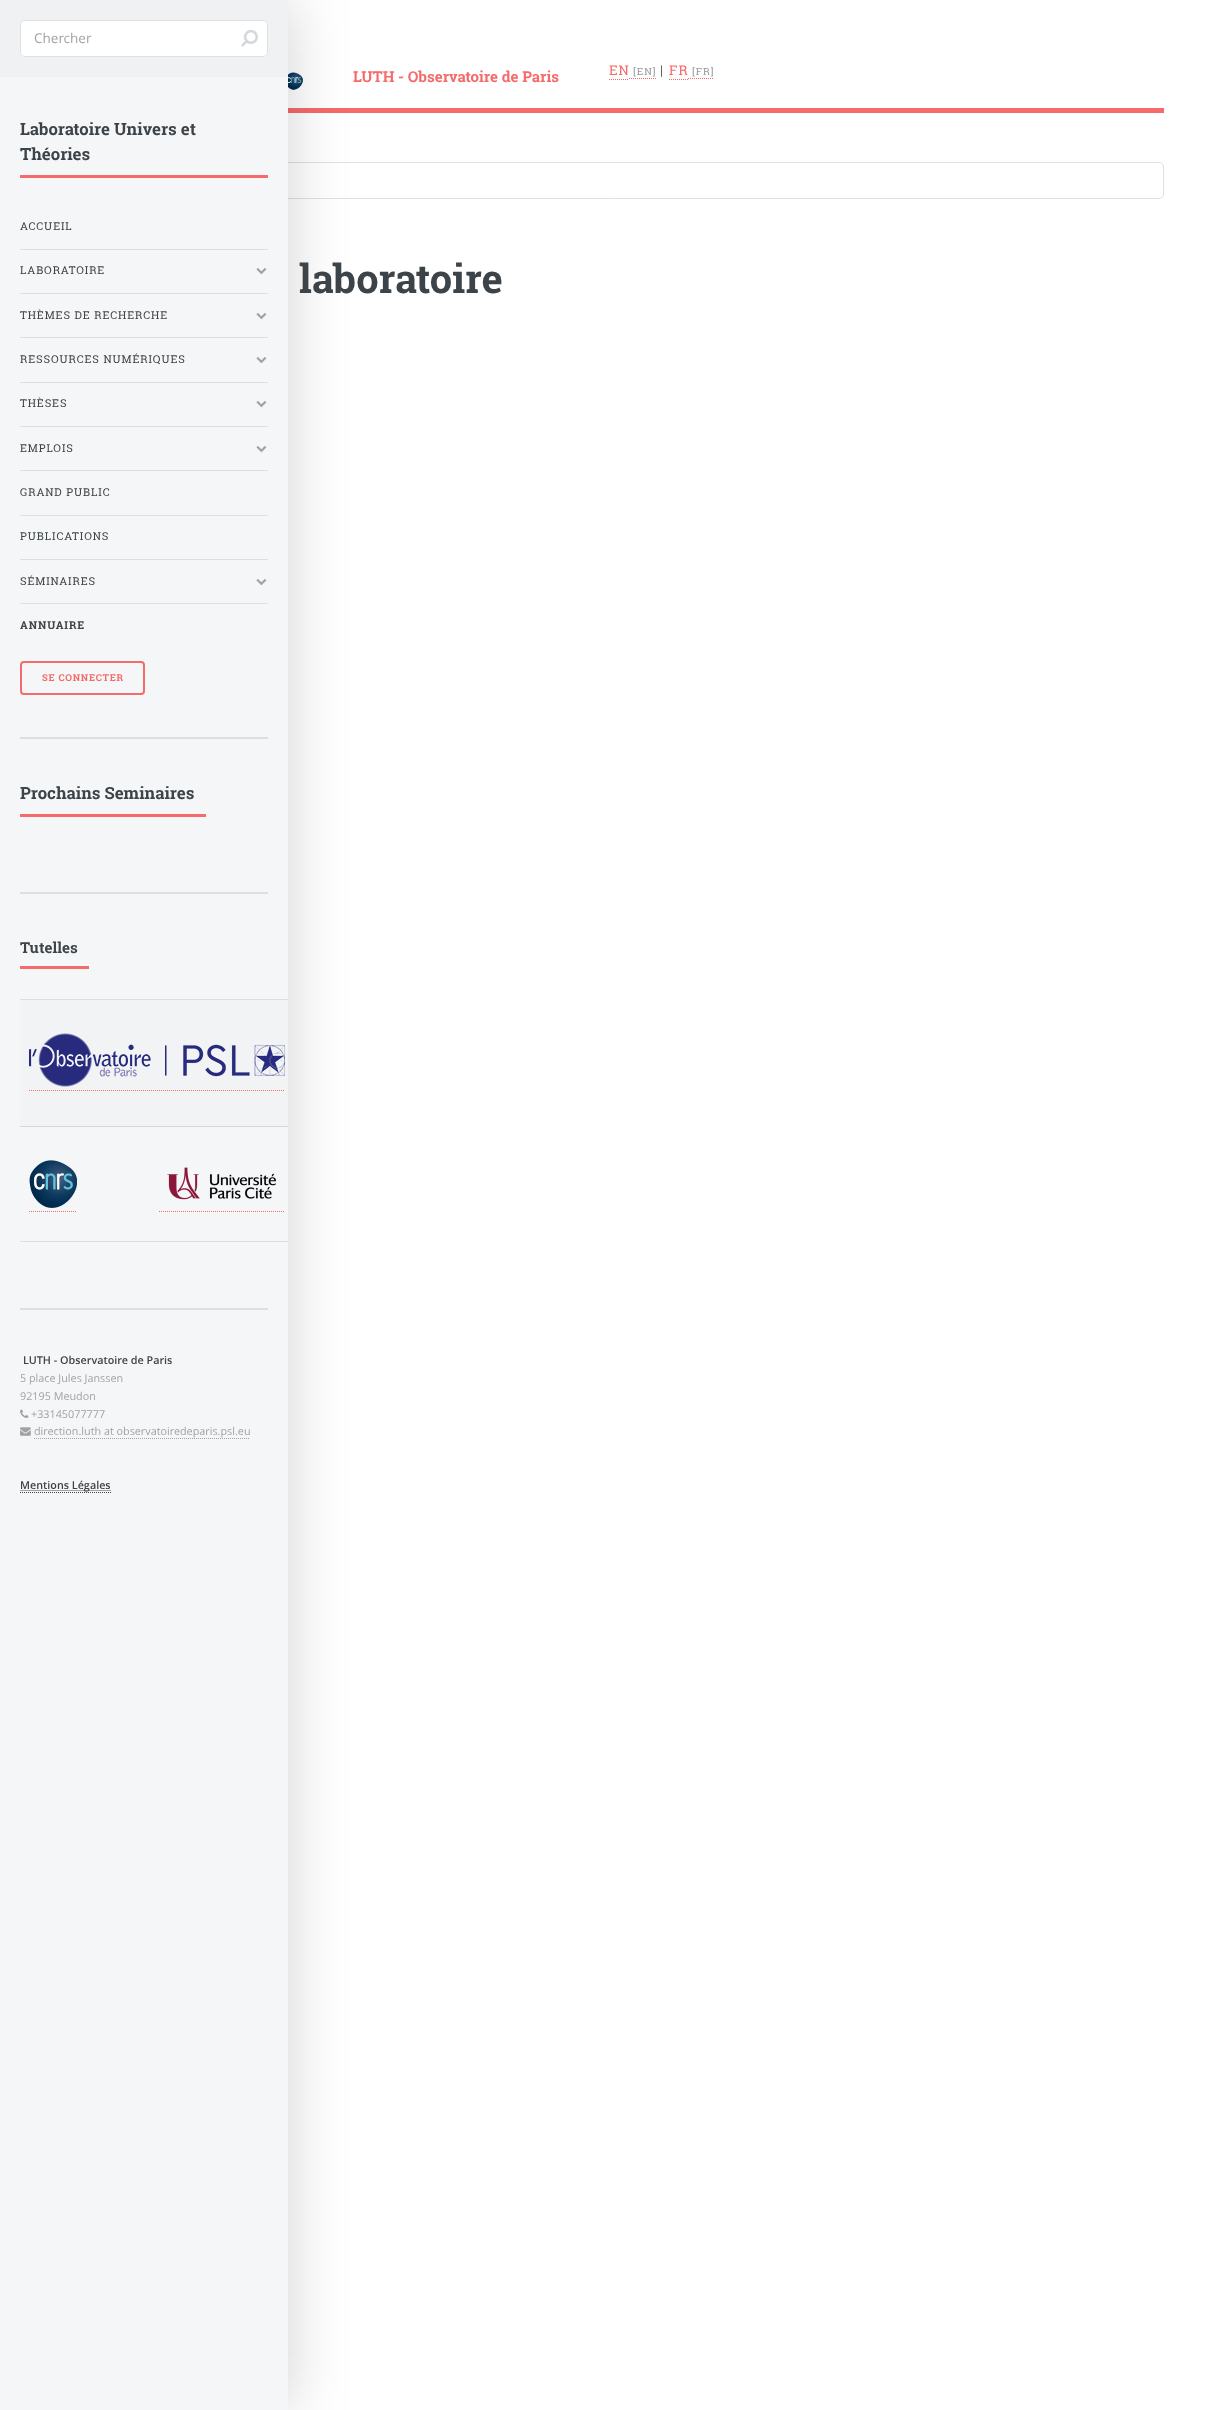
<!DOCTYPE html>
<meta charset="utf-8">
<style>body { margin: 0 } canvas { display: block }</style>
<canvas id="canvas" width="1217" height="2410"></canvas>
<img id="img1" src="img_08.png" hidden>
<img id="img2" src="img_01.png" hidden>
<img id="img3" src="img_02.png" hidden>
<img id="img4" src="img_03.png" hidden>
<img id="img5" src="img_04.png" hidden>
<img id="img6" src="img_05.png" hidden>
<img id="img7" src="img_06.png" hidden>
<img id="img8" src="img_07.png" hidden>
<script>
window.onload = function () {
	const canvas = document.getElementById("canvas");
	const ctx = canvas.getContext("2d");
	ctx.miterLimit = 4;
	ctx.fontKerning = "normal";
	function txt(s, x, y) {
		ctx.fillText(s, x, y);
	}
	function fill(x, y, w, h) {
		ctx.fillRect(x, y, w, h);
	}
	function round(x, y, w, h, r) {
		ctx.beginPath();
		ctx.roundRect(x, y, w, h, r);
		ctx.fill();
	}
	function img(id, x, y, w, h) {
		ctx.drawImage(document.getElementById(id), x, y, w, h);
	}

	ctx.fillStyle = "#FFFFFF";
	fill(0, 0, 1217, 2410);
	ctx.fillStyle = "#F56A6A";
	fill(288, 108, 876, 5);
	img("img1", 288, 72, 15, 18);
	ctx.beginPath();
	ctx.roundRect(53.5, 162.5, 1110, 36, 4.5);
	ctx.strokeStyle = "#DDE1E3";
	ctx.stroke();
	ctx.fillStyle = "rgba(0, 0, 0, 0.18)";
	ctx.filter = "blur(30px)";
	ctx.beginPath();
	ctx.rect(0, 0, 288, 2410);
	ctx.fill();
	ctx.filter = "none";
	ctx.fillStyle = "#F5F6F7";
	fill(0, 77, 288, 2333);
	ctx.fillStyle = "#EFF1F2";
	fill(0, 0, 288, 77);
	ctx.fillStyle = "#FFFFFF";
	round(20, 20, 248, 37, 5);
	ctx.beginPath();
	ctx.roundRect(20.5, 20.5, 247, 36, 4.5);
	ctx.strokeStyle = "rgba(210, 215, 217, 0.75)";
	ctx.stroke();
	img("img2", 241, 29, 17, 18);
	ctx.fillStyle = "#DBDFE1";
	fill(20, 737, 248, 2);
	ctx.fillStyle = "#F56A6A";
	fill(20, 175, 248, 3);
	ctx.fillStyle = "#DBDFE1";
	fill(20, 249, 248, 1);
	img("img3", 256, 268, 11, 7);
	fill(20, 293, 248, 1);
	img("img3", 256, 313, 11, 7);
	fill(20, 337, 248, 1);
	img("img3", 256, 357, 11, 7);
	fill(20, 382, 248, 1);
	img("img3", 256, 401, 11, 7);
	fill(20, 426, 248, 1);
	img("img3", 256, 446, 11, 7);
	fill(20, 470, 248, 1);
	fill(20, 515, 248, 1);
	fill(20, 559, 248, 1);
	img("img3", 256, 579, 11, 7);
	fill(20, 603, 248, 1);
	ctx.beginPath();
	ctx.roundRect(21, 662, 123, 32, 3);
	ctx.strokeStyle = "#F56A6A";
	ctx.lineWidth = 2;
	ctx.stroke();
	fill(20, 892, 248, 2);
	ctx.fillStyle = "#F56A6A";
	fill(20, 814, 186, 3);
	ctx.fillStyle = "#DBDFE1";
	fill(20, 1308, 248, 2);
	ctx.fillStyle = "#F56A6A";
	fill(20, 966, 69, 3);
	ctx.fillStyle = "#F1F3F5";
	fill(20, 1000, 268, 126);
	ctx.fillStyle = "#DBDFE1";
	fill(20, 999, 268, 1);
	ctx.fillStyle = "#D4D9DB";
	fill(20, 1126, 268, 1);
	img("img4", 29, 1033, 256, 54);
	ctx.beginPath();
	ctx.moveTo(29, 1090.5);
	ctx.lineTo(285, 1090.5);
	ctx.lineWidth = 1;
	ctx.setLineDash([1, 1]);
	ctx.stroke();
	ctx.fillStyle = "#DBDFE1";
	fill(20, 1241, 268, 1);
	img("img5", 29, 1160, 48, 48);
	ctx.beginPath();
	ctx.moveTo(29, 1211.5);
	ctx.lineTo(77, 1211.5);
	ctx.stroke();
	img("img6", 167, 1167, 109, 33);
	ctx.beginPath();
	ctx.moveTo(159, 1211.5);
	ctx.lineTo(285, 1211.5);
	ctx.stroke();
	img("img7", 20, 1409, 9, 9);
	img("img8", 20, 1427, 11, 9);
	ctx.beginPath();
	ctx.moveTo(34, 1438.5);
	ctx.lineTo(250, 1438.5);
	ctx.strokeStyle = "#9FA3A6";
	ctx.stroke();
	ctx.beginPath();
	ctx.moveTo(20, 1492.5);
	ctx.lineTo(111, 1492.5);
	ctx.strokeStyle = "#3D4449";
	ctx.stroke();
	ctx.fillStyle = "#9FA3A6";
	fill(20, 1490, 91, 1);
	ctx.beginPath();
	ctx.moveTo(609, 79.5);
	ctx.lineTo(629, 79.5);
	ctx.moveTo(629, 78.5);
	ctx.lineTo(656, 78.5);
	ctx.strokeStyle = "#F56A6A";
	ctx.stroke();
	ctx.beginPath();
	ctx.moveTo(669, 79.5);
	ctx.lineTo(688, 79.5);
	ctx.moveTo(688, 78.5);
	ctx.lineTo(714, 78.5);
	ctx.stroke();
	ctx.font = "13.5px Open Sans";
	txt("Chercher", 34, 43);
	ctx.font = "bold 16.75px Roboto Slab";
	ctx.fillStyle = "#3D4449";
	txt("Laboratoire Univers et", 20, 135);
	txt("Théories", 20, 160);
	ctx.letterSpacing = "0.9px";
	ctx.font = "10.8px Roboto Slab";
	txt("ACCUEIL", 20, 230);
	txt("LABORATOIRE", 20, 274);
	txt("THÈMES DE RECHERCHE", 20, 319);
	txt("RESSOURCES NUMÉRIQUES", 20, 363);
	txt("THÈSES", 20, 407);
	txt("EMPLOIS", 20, 452);
	txt("GRAND PUBLIC", 20, 496);
	txt("PUBLICATIONS", 20, 540);
	txt("SÉMINAIRES", 20, 585);
	ctx.font = "bold 10.8px Roboto Slab";
	txt("ANNUAIRE", 20, 629);
	ctx.letterSpacing = "0.75px";
	ctx.font = "bold 9.5px Roboto Slab";
	ctx.fillStyle = "#F56A6A";
	txt("SE CONNECTER", 42, 681);
	ctx.letterSpacing = "0px";
	ctx.font = "bold 16.75px Roboto Slab";
	ctx.fillStyle = "#3D4449";
	txt("Prochains Seminaires", 20, 799);
	ctx.font = "bold 15px Roboto Slab";
	txt("Tutelles", 20, 953);
	ctx.font = "600 10.8px Open Sans";
	txt("LUTH - Observatoire de Paris", 23, 1364);
	ctx.font = "10.8px Open Sans";
	ctx.fillStyle = "#9FA3A6";
	txt("5 place Jules Janssen", 20, 1382);
	txt("92195 Meudon", 20, 1400);
	txt("+33145077777", 31, 1418);
	txt("direction.luth at observatoiredeparis.psl.eu", 34, 1435);
	ctx.font = "600 10.8px Open Sans";
	ctx.fillStyle = "#3D4449";
	txt("Mentions Légales", 20, 1489);
	ctx.font = "bold 15px Roboto Slab";
	ctx.fillStyle = "#F56A6A";
	txt("LUTH - Observatoire de Paris", 353, 82);
	ctx.letterSpacing = "1px";
	ctx.font = "13.5px Roboto Slab";
	txt("EN", 609, 75);
	ctx.font = "10px Roboto Slab";
	ctx.fillStyle = "#999999";
	txt("[EN]", 633, 75);
	ctx.font = "13.5px Roboto Slab";
	ctx.fillStyle = "#656565";
	txt("|", 660, 75);
	ctx.fillStyle = "#F56A6A";
	txt("FR", 669, 75);
	ctx.font = "10px Roboto Slab";
	ctx.fillStyle = "#999999";
	txt("[FR]", 692, 75);
	ctx.letterSpacing = "0px";
	ctx.font = "bold 40px Roboto Slab";
	ctx.fillStyle = "#3D4449";
	txt("laboratoire", 299, 293);
};
</script>
